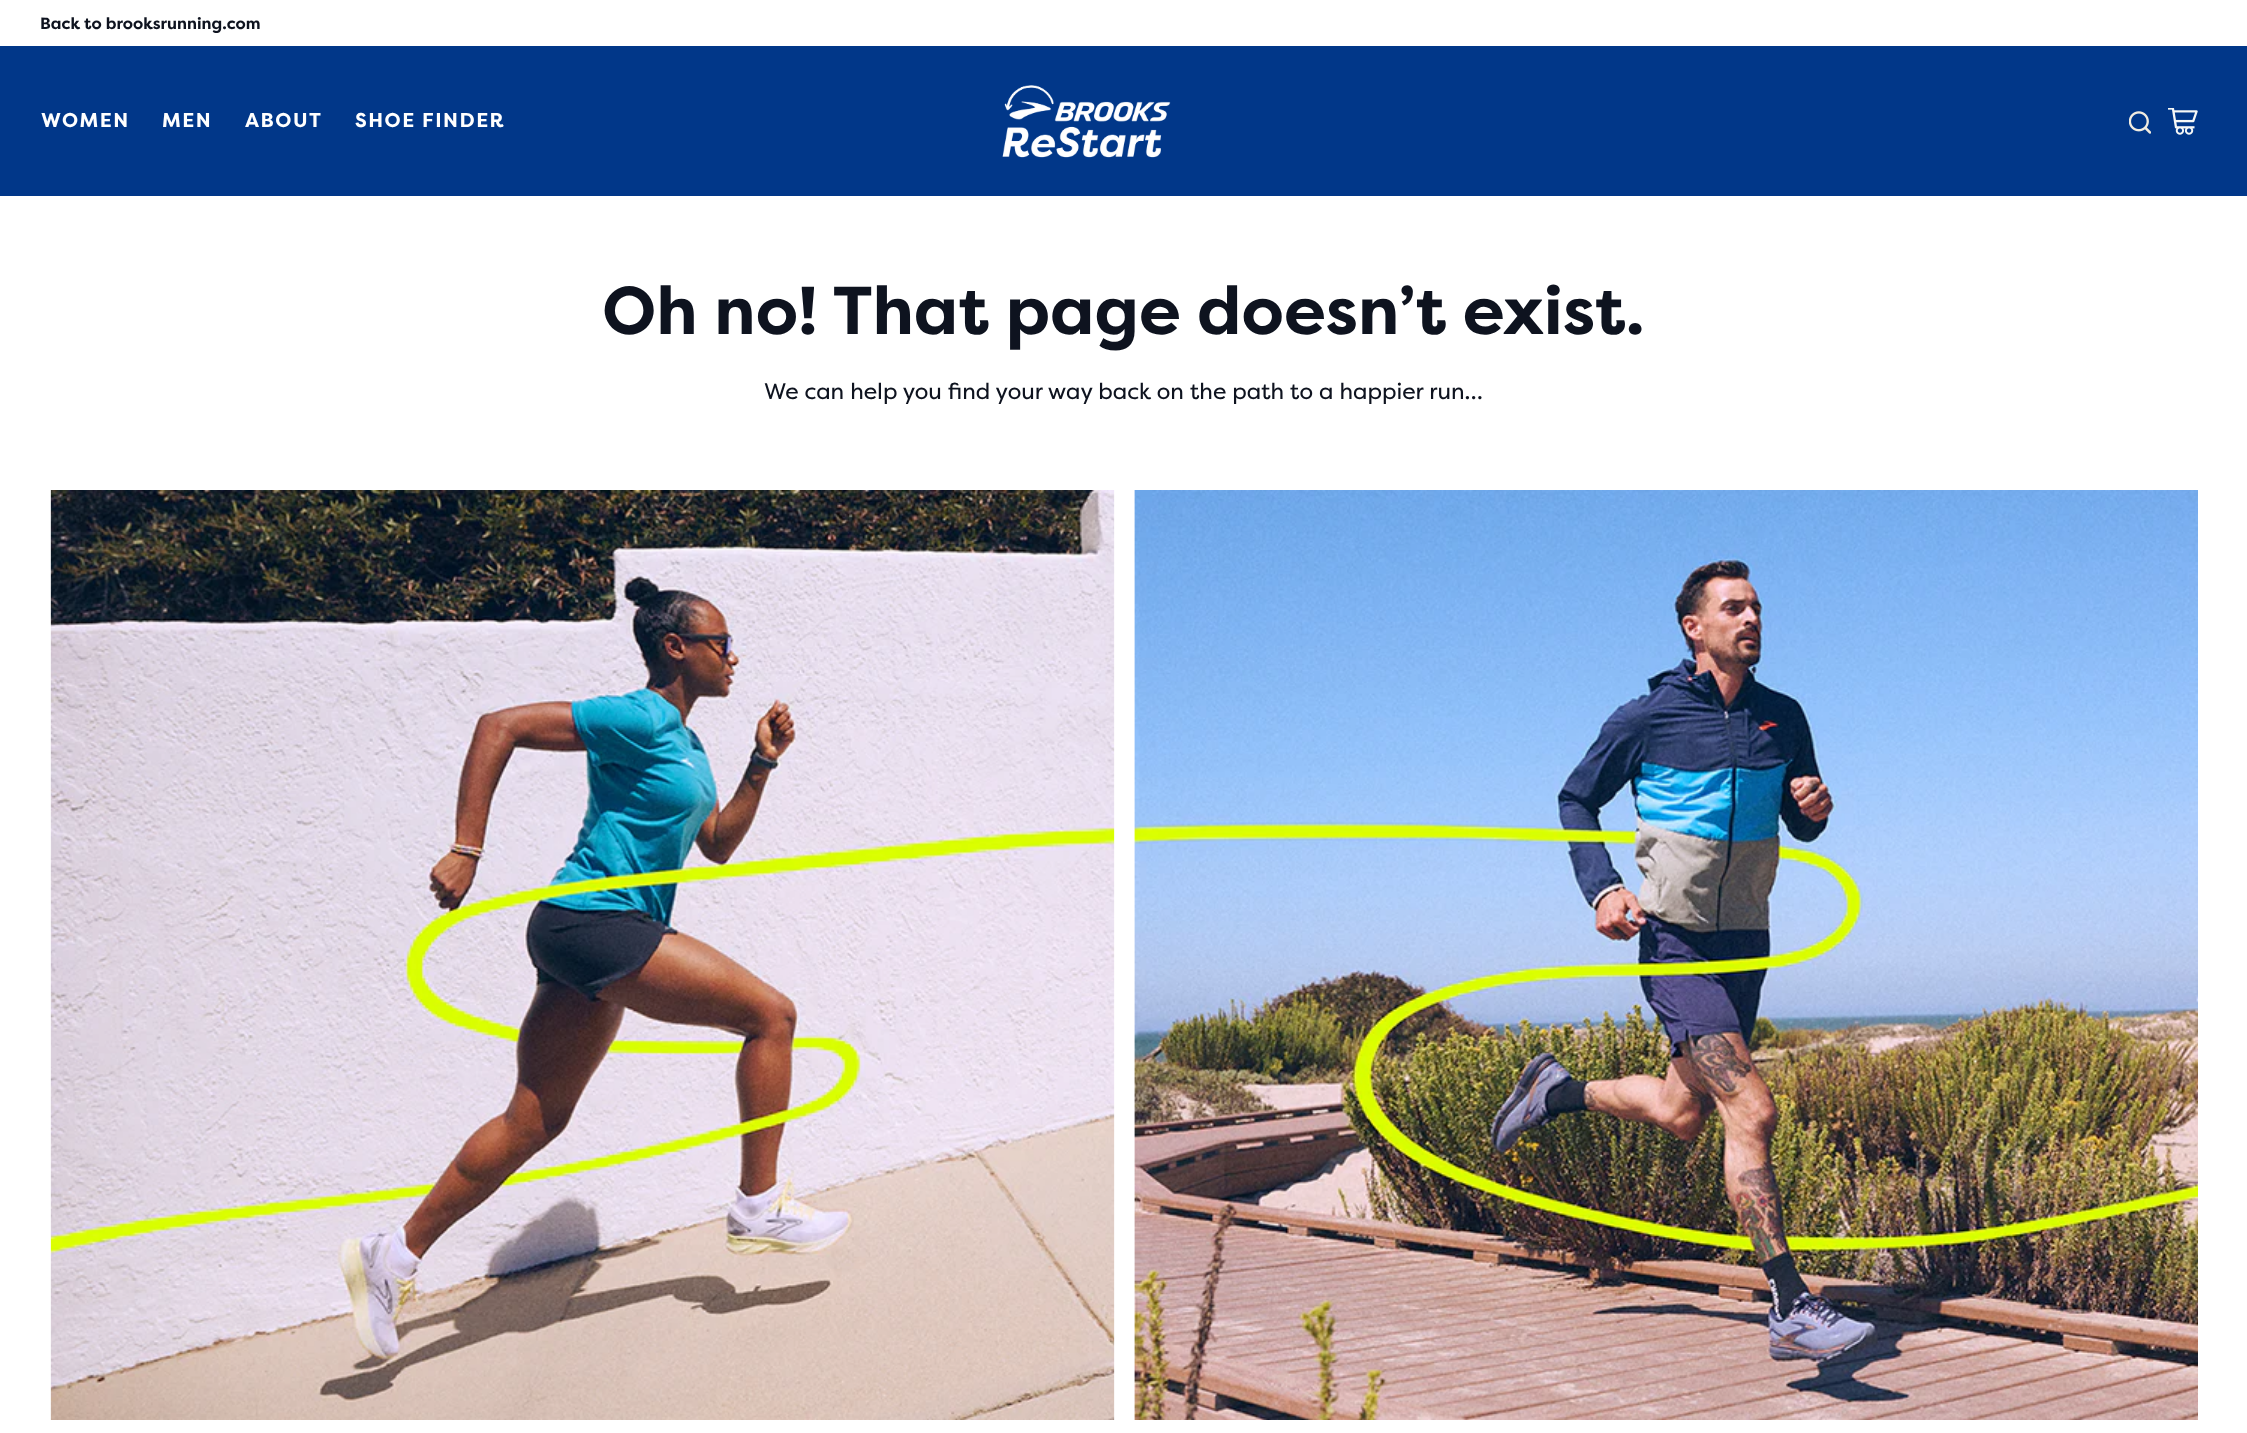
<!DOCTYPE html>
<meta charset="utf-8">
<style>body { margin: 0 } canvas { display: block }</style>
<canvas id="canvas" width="2247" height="1433"></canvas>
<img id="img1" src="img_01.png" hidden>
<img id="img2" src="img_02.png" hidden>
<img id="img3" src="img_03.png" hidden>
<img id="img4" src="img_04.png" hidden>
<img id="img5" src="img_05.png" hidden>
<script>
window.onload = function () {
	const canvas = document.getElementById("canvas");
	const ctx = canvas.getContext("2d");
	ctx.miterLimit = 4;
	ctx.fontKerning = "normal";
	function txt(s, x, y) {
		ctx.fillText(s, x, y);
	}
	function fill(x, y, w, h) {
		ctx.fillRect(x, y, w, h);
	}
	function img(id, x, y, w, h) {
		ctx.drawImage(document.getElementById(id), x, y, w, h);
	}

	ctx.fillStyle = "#FFFFFF";
	fill(0, 0, 2247, 1433);
	ctx.fillStyle = "#013789";
	fill(0, 46, 2247, 150);
	img("img1", 1002, 85, 169, 73);
	img("img2", 2129, 111, 22, 23);
	img("img3", 2168, 108, 30, 27);
	img("img4", 50, 490, 1065, 930);
	img("img5", 1134, 490, 1064, 930);
	ctx.font = "bold 16.25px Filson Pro";
	ctx.fillStyle = "#0E131F";
	txt("Back to brooksrunning.com", 40, 29);
	ctx.letterSpacing = "1.5px";
	ctx.font = "bold 20px Filson Pro";
	ctx.fillStyle = "#FFFFFF";
	txt("WOMEN", 41, 127);
	txt("MEN", 162, 127);
	txt("ABOUT", 245, 127);
	txt("SHOE FINDER", 355, 127);
	ctx.letterSpacing = "0px";
	ctx.font = "bold 67.5px Filson Pro";
	ctx.fillStyle = "#0E131F";
	txt("Oh no! That page doesn’t exist.", 602, 334);
	ctx.font = "22.5px Filson Pro";
	txt("We can help you find your way back on the path to a happier run…", 764, 399);
};
</script>
